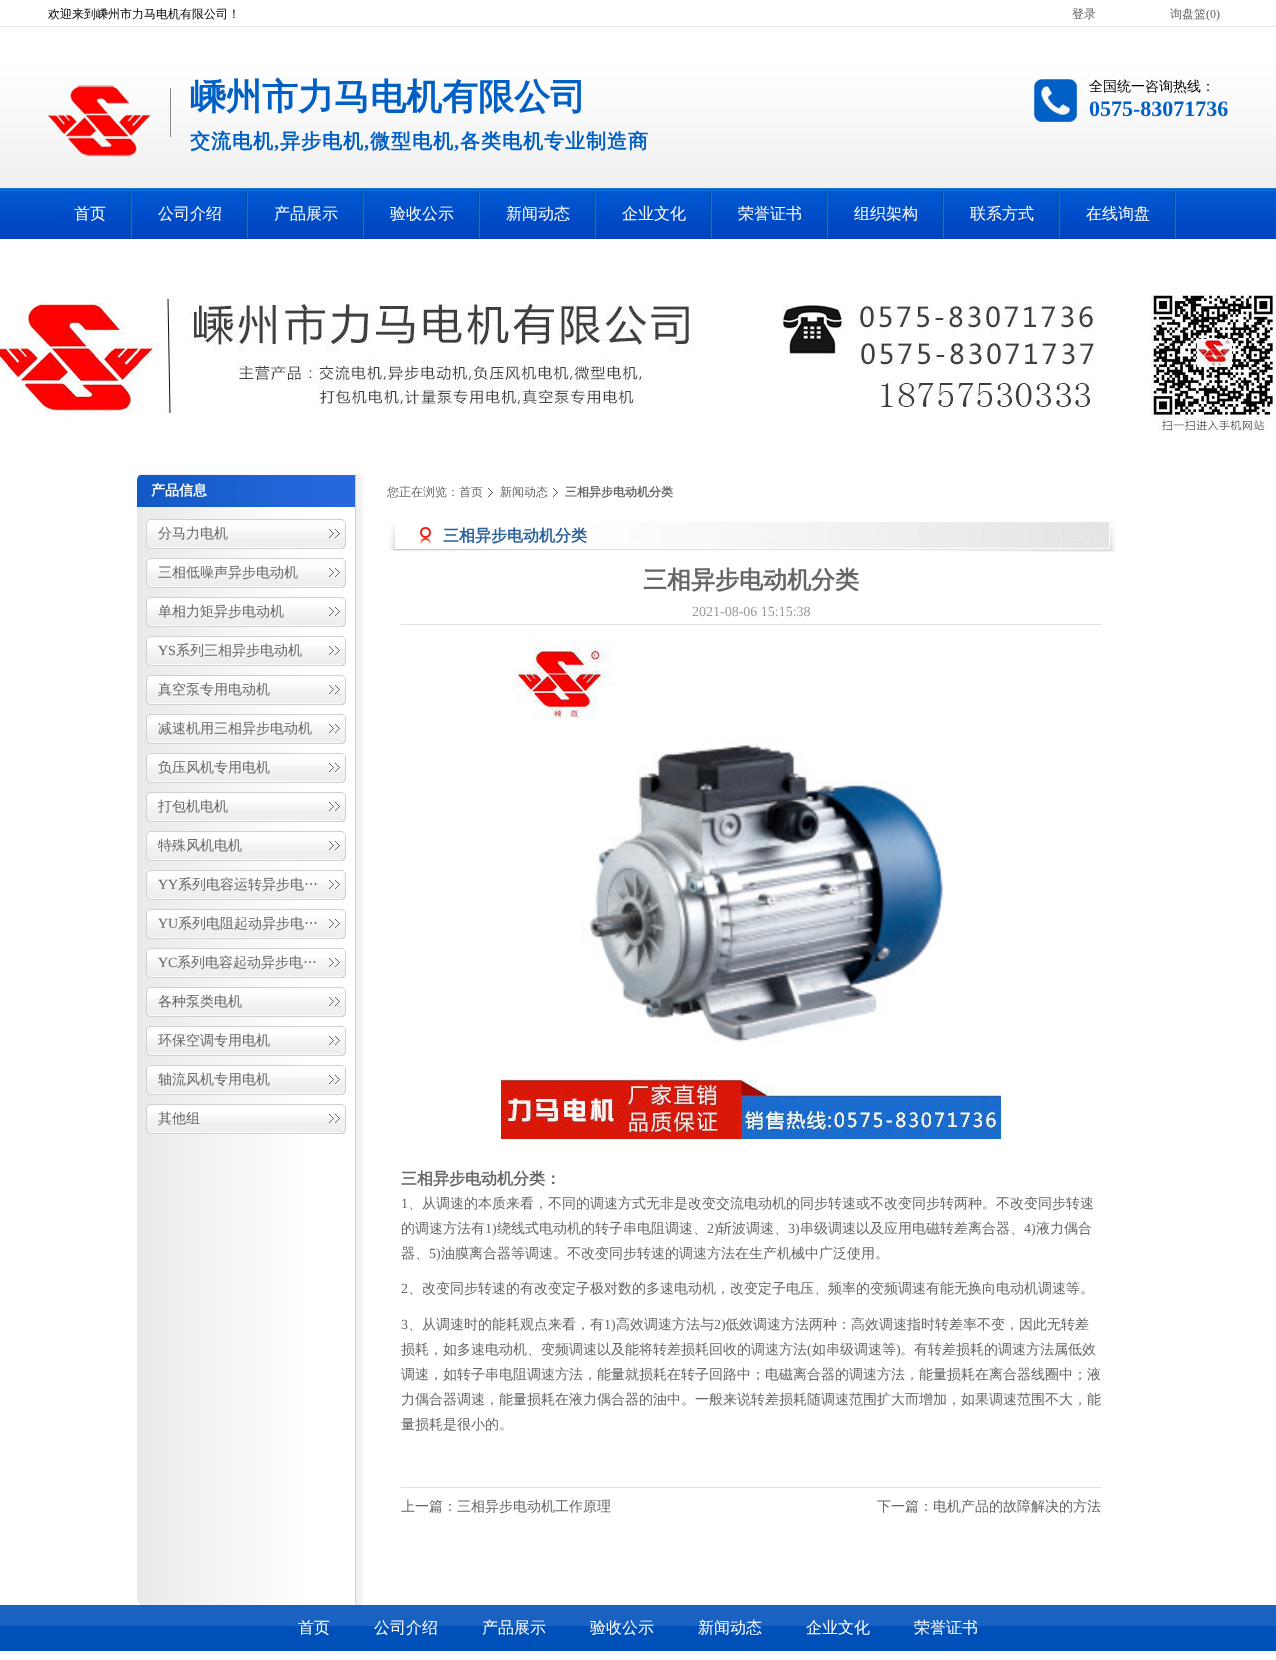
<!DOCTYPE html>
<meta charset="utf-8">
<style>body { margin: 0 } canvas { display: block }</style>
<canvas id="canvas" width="1276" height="1660"></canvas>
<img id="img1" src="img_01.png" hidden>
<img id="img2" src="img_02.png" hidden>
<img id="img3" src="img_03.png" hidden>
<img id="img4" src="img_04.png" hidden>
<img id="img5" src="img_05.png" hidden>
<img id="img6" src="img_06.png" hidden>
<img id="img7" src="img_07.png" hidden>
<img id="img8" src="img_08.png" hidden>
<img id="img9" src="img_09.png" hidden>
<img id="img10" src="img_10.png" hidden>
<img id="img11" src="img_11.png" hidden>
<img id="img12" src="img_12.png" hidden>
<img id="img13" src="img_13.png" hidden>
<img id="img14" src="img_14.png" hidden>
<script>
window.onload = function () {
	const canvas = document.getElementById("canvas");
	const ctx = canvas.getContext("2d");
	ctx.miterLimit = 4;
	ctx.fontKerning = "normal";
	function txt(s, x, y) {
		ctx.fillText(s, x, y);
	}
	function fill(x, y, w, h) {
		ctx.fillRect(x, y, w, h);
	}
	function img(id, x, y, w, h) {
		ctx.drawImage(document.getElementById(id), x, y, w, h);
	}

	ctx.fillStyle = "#FFFFFF";
	fill(0, 0, 1276, 1660);
	img("img1", 0, 26, 1276, 162);
	ctx.fillStyle = "#888888";
	fill(170, 88, 1, 49);
	img("img2", 48, 85, 103, 72);
	img("img3", 1034, 79, 43, 43);
	img("img4", 0, 188, 1276, 51);
	img("img5", 130, 190, 2, 48);
	img("img5", 246, 190, 2, 48);
	img("img5", 362, 190, 2, 48);
	img("img5", 478, 190, 2, 48);
	img("img5", 594, 190, 2, 48);
	img("img5", 710, 190, 2, 48);
	img("img5", 826, 190, 2, 48);
	img("img5", 942, 190, 2, 48);
	img("img5", 1058, 190, 2, 48);
	img("img5", 1174, 190, 2, 48);
	img("img6", 0, 293, 1276, 138);
	img("img7", 137, 474, 227, 1131);
	img("img8", 137, 475, 218, 32);
	img("img9", 146, 519, 200, 30);
	img("img9", 146, 558, 200, 30);
	img("img9", 146, 597, 200, 30);
	img("img9", 146, 636, 200, 30);
	img("img9", 146, 675, 200, 30);
	img("img9", 146, 714, 200, 30);
	img("img9", 146, 753, 200, 30);
	img("img9", 146, 792, 200, 30);
	img("img9", 146, 831, 200, 30);
	img("img9", 146, 870, 200, 30);
	img("img9", 146, 909, 200, 30);
	img("img9", 146, 948, 200, 30);
	img("img9", 146, 987, 200, 30);
	img("img9", 146, 1026, 200, 30);
	img("img9", 146, 1065, 200, 30);
	img("img9", 146, 1104, 200, 30);
	img("img10", 488, 488, 5, 9);
	img("img10", 553, 488, 5, 9);
	img("img11", 389, 522, 727, 30);
	img("img12", 419, 527, 13, 18);
	ctx.fillStyle = "#E0E0E0";
	fill(401, 624, 700, 1);
	img("img13", 501, 639, 500, 500);
	fill(401, 1487, 700, 1);
	img("img14", 0, 1605, 1276, 46);
	ctx.font = "500 12px WenQuanYi Zen Hei";
	ctx.fillStyle = "#000000";
	txt("欢迎来到嵊州市力马电机有限公司！", 48, 18);
	ctx.fillStyle = "#635F5F";
	txt("登录", 1072, 18);
	txt("询盘篮", 1170, 18);
	ctx.font = "12px Liberation Serif";
	txt("(0)", 1206, 18);
	ctx.font = "bold 36px WenQuanYi Zen Hei";
	ctx.fillStyle = "#0060C6";
	txt("嵊州市力马电机有限公司", 190, 109);
	ctx.letterSpacing = "1px";
	ctx.font = "bold 20px WenQuanYi Zen Hei";
	txt("交流电机", 190, 148);
	ctx.font = "bold 20px Liberation Serif";
	txt(",", 274, 148);
	ctx.font = "bold 20px WenQuanYi Zen Hei";
	txt("异步电机", 280, 148);
	ctx.font = "bold 20px Liberation Serif";
	txt(",", 364, 148);
	ctx.font = "bold 20px WenQuanYi Zen Hei";
	txt("微型电机", 370, 148);
	ctx.font = "bold 20px Liberation Serif";
	txt(",", 454, 148);
	ctx.font = "bold 20px WenQuanYi Zen Hei";
	txt("各类电机专业制造商", 460, 148);
	ctx.letterSpacing = "0px";
	ctx.font = "500 14px WenQuanYi Zen Hei";
	ctx.fillStyle = "#000000";
	txt("全国统一咨询热线：", 1089, 91);
	ctx.font = "bold 22px Liberation Serif";
	ctx.fillStyle = "#0060C6";
	txt("0575-83071736", 1089, 116);
	ctx.font = "500 16px WenQuanYi Zen Hei";
	ctx.fillStyle = "#FFFFFF";
	txt("首页", 74, 219);
	txt("公司介绍", 158, 219);
	txt("产品展示", 274, 219);
	txt("验收公示", 390, 219);
	txt("新闻动态", 506, 219);
	txt("企业文化", 622, 219);
	txt("荣誉证书", 738, 219);
	txt("组织架构", 854, 219);
	txt("联系方式", 970, 219);
	txt("在线询盘", 1086, 219);
	ctx.font = "bold 14px WenQuanYi Zen Hei";
	txt("产品信息", 151, 495);
	ctx.font = "500 14px WenQuanYi Zen Hei";
	ctx.fillStyle = "#666666";
	txt("分马力电机", 158, 538);
	txt("三相低噪声异步电动机", 158, 577);
	txt("单相力矩异步电动机", 158, 616);
	ctx.font = "14px Liberation Serif";
	txt("YS", 158, 655);
	ctx.font = "500 14px WenQuanYi Zen Hei";
	txt("系列三相异步电动机", 176, 655);
	txt("真空泵专用电动机", 158, 694);
	txt("减速机用三相异步电动机", 158, 733);
	txt("负压风机专用电机", 158, 772);
	txt("打包机电机", 158, 811);
	txt("特殊风机电机", 158, 850);
	ctx.font = "14px Liberation Serif";
	txt("YY", 158, 889);
	ctx.font = "500 14px WenQuanYi Zen Hei";
	txt("系列电容运转异步电…", 178, 889);
	ctx.font = "14px Liberation Serif";
	txt("YU", 158, 928);
	ctx.font = "500 14px WenQuanYi Zen Hei";
	txt("系列电阻起动异步电…", 178, 928);
	ctx.font = "14px Liberation Serif";
	txt("YC", 158, 967);
	ctx.font = "500 14px WenQuanYi Zen Hei";
	txt("系列电容起动异步电…", 177, 967);
	txt("各种泵类电机", 158, 1006);
	txt("环保空调专用电机", 158, 1045);
	txt("轴流风机专用电机", 158, 1084);
	txt("其他组", 158, 1123);
	ctx.font = "500 12px WenQuanYi Zen Hei";
	txt("您正在浏览：首页", 387, 496);
	txt("新闻动态", 500, 496);
	ctx.font = "bold 12px WenQuanYi Zen Hei";
	txt("三相异步电动机分类", 565, 496);
	ctx.font = "bold 16px WenQuanYi Zen Hei";
	ctx.fillStyle = "#2C639C";
	txt("三相异步电动机分类", 443, 541);
	ctx.font = "bold 24px WenQuanYi Zen Hei";
	ctx.fillStyle = "#666666";
	txt("三相异步电动机分类", 643, 588);
	ctx.font = "14px Liberation Serif";
	ctx.fillStyle = "#999999";
	txt("2021-08-06 15:15:38", 692, 616);
	ctx.font = "bold 16px WenQuanYi Zen Hei";
	ctx.fillStyle = "#666666";
	txt("三相异步电动机分类：", 401, 1184);
	ctx.font = "14px Liberation Serif";
	txt("1", 401, 1208);
	ctx.font = "500 14px WenQuanYi Zen Hei";
	txt("、从调速的本质来看，不同的调速方式无非是改变交流电动机的同步转速或不改变同步转两种。不改变同步转速", 408, 1208);
	txt("的调速方法有", 401, 1233);
	ctx.font = "14px Liberation Serif";
	txt("1)", 485, 1233);
	ctx.font = "500 14px WenQuanYi Zen Hei";
	txt("绕线式电动机的转子串电阻调速、", 497, 1233);
	ctx.font = "14px Liberation Serif";
	txt("2)", 707, 1233);
	ctx.font = "500 14px WenQuanYi Zen Hei";
	txt("斩波调速、", 718, 1233);
	ctx.font = "14px Liberation Serif";
	txt("3)", 788, 1233);
	ctx.font = "500 14px WenQuanYi Zen Hei";
	txt("串级调速以及应用电磁转差离合器、", 800, 1233);
	ctx.font = "14px Liberation Serif";
	txt("4)", 1024, 1233);
	ctx.font = "500 14px WenQuanYi Zen Hei";
	txt("液力偶合", 1036, 1233);
	txt("器、", 401, 1258);
	ctx.font = "14px Liberation Serif";
	txt("5)", 429, 1258);
	ctx.font = "500 14px WenQuanYi Zen Hei";
	txt("油膜离合器等调速。不改变同步转速的调速方法在生产机械中广泛使用。", 441, 1258);
	ctx.font = "14px Liberation Serif";
	txt("2", 401, 1293);
	ctx.font = "500 14px WenQuanYi Zen Hei";
	txt("、改变同步转速的有改变定子极对数的多速电动机，改变定子电压、频率的变频调速有能无换向电动机调速等。", 408, 1293);
	ctx.font = "14px Liberation Serif";
	txt("3", 401, 1329);
	ctx.font = "500 14px WenQuanYi Zen Hei";
	txt("、从调速时的能耗观点来看，有", 408, 1329);
	ctx.font = "14px Liberation Serif";
	txt("1)", 604, 1329);
	ctx.font = "500 14px WenQuanYi Zen Hei";
	txt("高效调速方法与", 616, 1329);
	ctx.font = "14px Liberation Serif";
	txt("2)", 714, 1329);
	ctx.font = "500 14px WenQuanYi Zen Hei";
	txt("低效调速方法两种：高效调速指时转差率不变，因此无转差", 725, 1329);
	txt("损耗，如多速电动机、变频调速以及能将转差损耗回收的调速方法", 401, 1354);
	ctx.font = "14px Liberation Serif";
	txt("(", 807, 1354);
	ctx.font = "500 14px WenQuanYi Zen Hei";
	txt("如串级调速等", 812, 1354);
	ctx.font = "14px Liberation Serif";
	txt(")", 896, 1354);
	ctx.font = "500 14px WenQuanYi Zen Hei";
	txt("。有转差损耗的调速方法属低效", 900, 1354);
	txt("调速，如转子串电阻调速方法，能量就损耗在转子回路中；电磁离合器的调速方法，能量损耗在离合器线圈中；液", 401, 1379);
	txt("力偶合器调速，能量损耗在液力偶合器的油中。一般来说转差损耗随调速范围扩大而增加，如果调速范围不大，能", 401, 1404);
	txt("量损耗是很小的。", 401, 1429);
	txt("上一篇：", 401, 1511);
	ctx.fillStyle = "#635F5F";
	txt("三相异步电动机工作原理", 457, 1511);
	ctx.fillStyle = "#666666";
	txt("下一篇：", 877, 1511);
	ctx.fillStyle = "#635F5F";
	txt("电机产品的故障解决的方法", 933, 1511);
	ctx.font = "500 16px WenQuanYi Zen Hei";
	ctx.fillStyle = "#FFFFFF";
	txt("首页", 298, 1633);
	txt("公司介绍", 374, 1633);
	txt("产品展示", 482, 1633);
	txt("验收公示", 590, 1633);
	txt("新闻动态", 698, 1633);
	txt("企业文化", 806, 1633);
	txt("荣誉证书", 914, 1633);
};
</script>
